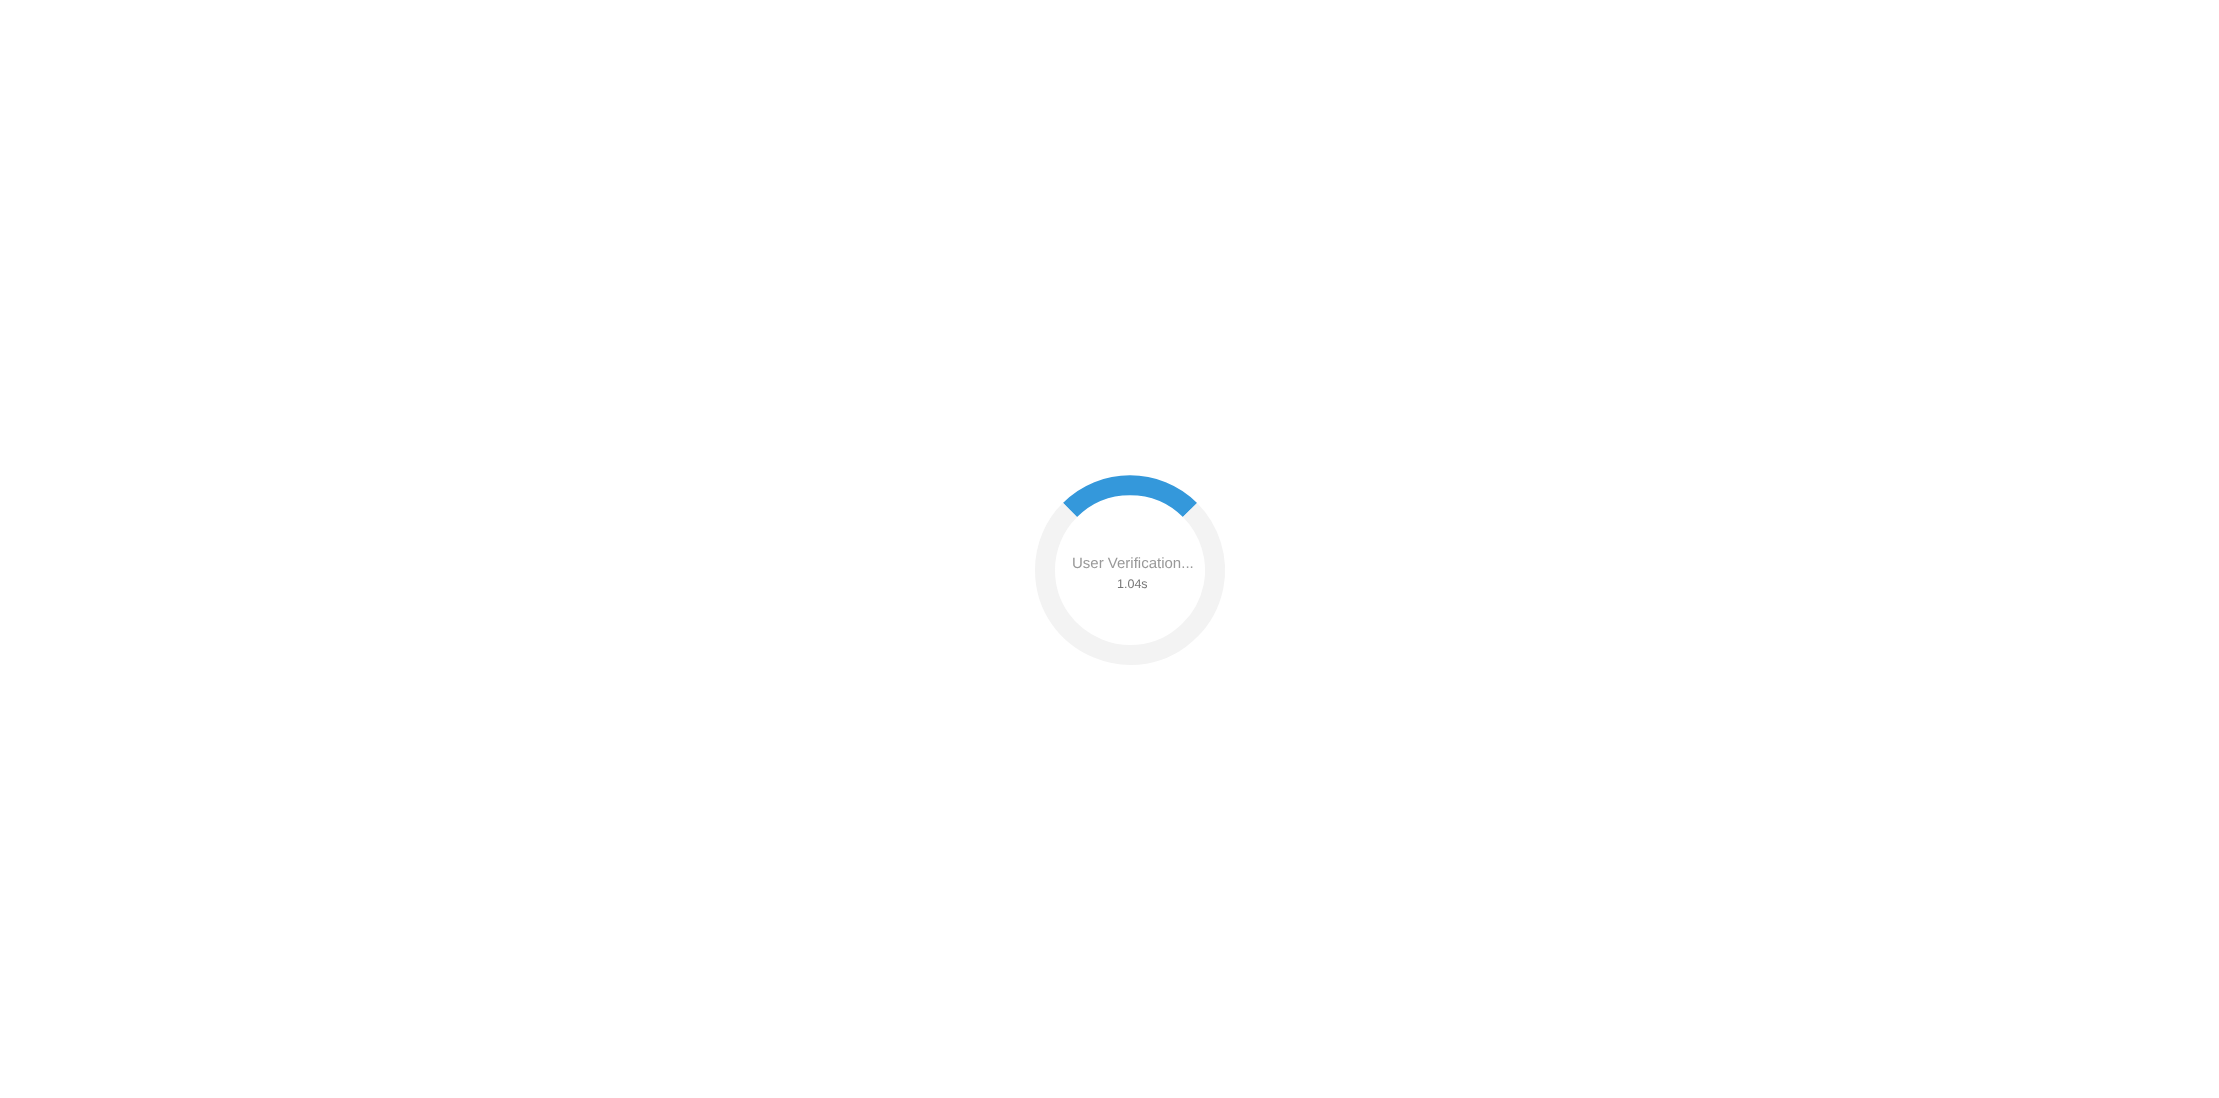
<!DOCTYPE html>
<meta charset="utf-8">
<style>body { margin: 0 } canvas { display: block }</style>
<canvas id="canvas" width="2219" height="1098"></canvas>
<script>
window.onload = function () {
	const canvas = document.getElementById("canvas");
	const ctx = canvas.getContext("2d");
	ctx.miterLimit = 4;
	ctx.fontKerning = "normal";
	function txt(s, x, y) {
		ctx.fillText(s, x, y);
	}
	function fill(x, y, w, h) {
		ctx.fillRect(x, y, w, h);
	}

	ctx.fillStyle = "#FFFFFF";
	fill(0, 0, 2219, 1098);
	ctx.beginPath();
	ctx.moveTo(1070, 510);
	ctx.bezierCurveTo(1103, 477, 1157, 477, 1190, 510);
	ctx.strokeStyle = "#3498DB";
	ctx.lineWidth = 20;
	ctx.stroke();
	ctx.beginPath();
	ctx.moveTo(1190, 510);
	ctx.bezierCurveTo(1210, 530, 1219, 559, 1213.5, 586.5);
	ctx.bezierCurveTo(1210, 603, 1202, 618.5, 1190, 630);
	ctx.bezierCurveTo(1137, 683.5, 1045, 645.5, 1045, 570);
	ctx.bezierCurveTo(1045, 547.5, 1054, 525.5, 1070, 510);
	ctx.strokeStyle = "#F3F3F3";
	ctx.stroke();
	ctx.font = "15px Liberation Sans";
	ctx.fillStyle = "#999999";
	txt("User Verification...", 1072, 568);
	ctx.font = "12.5px Liberation Sans";
	ctx.fillStyle = "#777777";
	txt("1.04s", 1117, 588);
};
</script>
